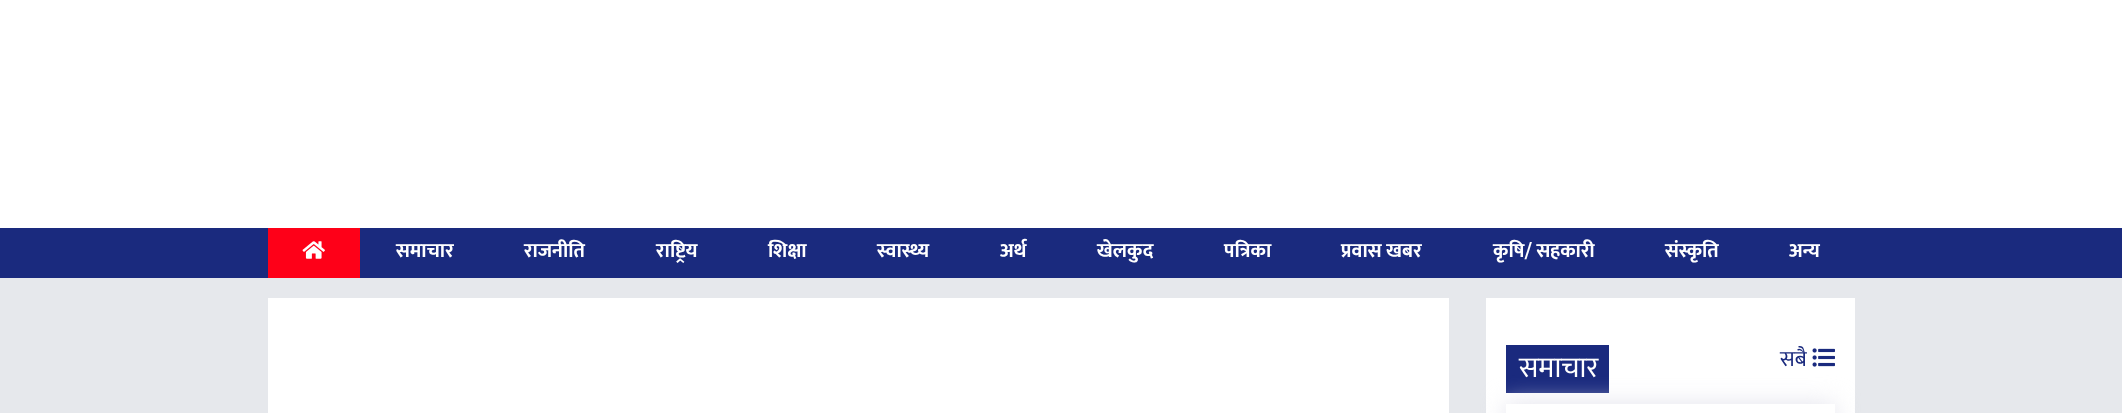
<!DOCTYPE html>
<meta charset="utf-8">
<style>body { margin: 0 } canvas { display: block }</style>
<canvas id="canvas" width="2122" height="413"></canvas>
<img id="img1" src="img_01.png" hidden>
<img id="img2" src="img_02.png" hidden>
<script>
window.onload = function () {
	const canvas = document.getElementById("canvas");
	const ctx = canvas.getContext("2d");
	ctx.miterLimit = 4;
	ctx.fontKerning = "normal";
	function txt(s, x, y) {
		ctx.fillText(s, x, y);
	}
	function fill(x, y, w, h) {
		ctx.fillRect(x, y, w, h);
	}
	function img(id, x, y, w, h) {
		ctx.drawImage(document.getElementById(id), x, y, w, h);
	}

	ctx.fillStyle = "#E6E8EC";
	fill(0, 0, 2122, 413);
	ctx.fillStyle = "#FFFFFF";
	fill(0, 0, 2122, 228);
	ctx.fillStyle = "#1A2A7E";
	fill(0, 228, 2122, 50);
	ctx.fillStyle = "#FE0018";
	fill(268, 228, 92, 50);
	img("img1", 302, 241, 23, 18);
	ctx.fillStyle = "#FFFFFF";
	fill(268, 298, 1181, 115);
	fill(1486, 298, 369, 115);
	ctx.fillStyle = "#1A2A7E";
	fill(1506, 345, 103, 48);
	img("img2", 1812, 348, 23, 19);
	ctx.save();
	ctx.beginPath();
	ctx.moveTo(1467, 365);
	ctx.lineTo(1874, 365);
	ctx.lineTo(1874, 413);
	ctx.lineTo(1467, 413);
	ctx.closePath();
	ctx.moveTo(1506, 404);
	ctx.lineTo(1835, 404);
	ctx.lineTo(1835, 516);
	ctx.lineTo(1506, 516);
	ctx.closePath();
	ctx.clip("evenodd");
	ctx.fillStyle = "#E3E3EC";
	ctx.filter = "blur(12.5px)";
	ctx.beginPath();
	ctx.rect(1506, 404, 329, 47);
	ctx.fill();
	ctx.filter = "none";
	ctx.restore();
	ctx.font = "bold 20px Mukta";
	ctx.fillStyle = "#FFFFFF";
	txt("समाचार", 396, 257);
	txt("राजनीति", 524, 257);
	txt("राष्ट्रिय", 656, 257);
	txt("शिक्षा", 768, 257);
	txt("स्वास्थ्य", 877, 257);
	txt("अर्थ", 1000, 257);
	txt("खेलकुद", 1097, 257);
	txt("पत्रिका", 1224, 257);
	txt("प्रवास खबर", 1341, 257);
	txt("कृषि/ सहकारी", 1493, 257);
	txt("संस्कृति", 1665, 257);
	txt("अन्य", 1789, 257);
	ctx.font = "29px Mukta";
	txt("समाचार", 1519, 377);
	ctx.font = "22px Mukta";
	ctx.fillStyle = "#1A2A7E";
	txt("सबै", 1780, 366);
};
</script>
